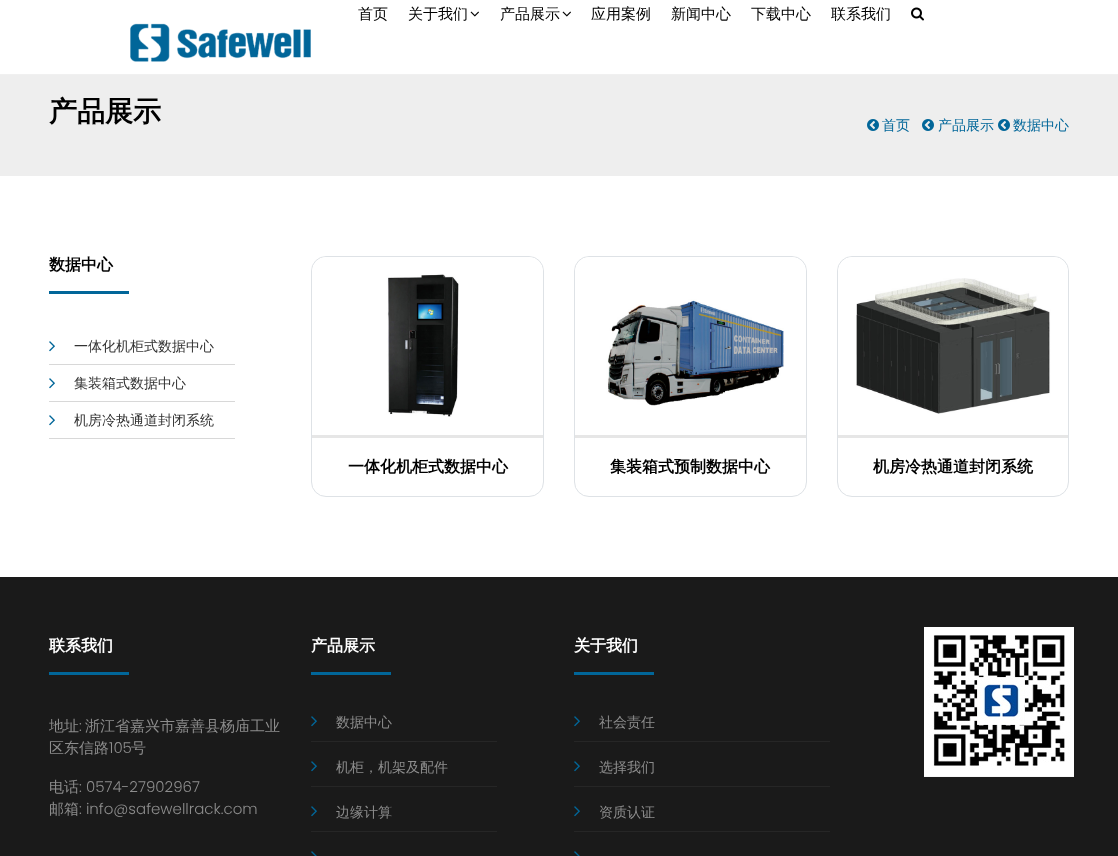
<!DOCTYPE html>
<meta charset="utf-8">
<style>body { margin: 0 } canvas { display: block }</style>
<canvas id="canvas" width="1118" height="856"></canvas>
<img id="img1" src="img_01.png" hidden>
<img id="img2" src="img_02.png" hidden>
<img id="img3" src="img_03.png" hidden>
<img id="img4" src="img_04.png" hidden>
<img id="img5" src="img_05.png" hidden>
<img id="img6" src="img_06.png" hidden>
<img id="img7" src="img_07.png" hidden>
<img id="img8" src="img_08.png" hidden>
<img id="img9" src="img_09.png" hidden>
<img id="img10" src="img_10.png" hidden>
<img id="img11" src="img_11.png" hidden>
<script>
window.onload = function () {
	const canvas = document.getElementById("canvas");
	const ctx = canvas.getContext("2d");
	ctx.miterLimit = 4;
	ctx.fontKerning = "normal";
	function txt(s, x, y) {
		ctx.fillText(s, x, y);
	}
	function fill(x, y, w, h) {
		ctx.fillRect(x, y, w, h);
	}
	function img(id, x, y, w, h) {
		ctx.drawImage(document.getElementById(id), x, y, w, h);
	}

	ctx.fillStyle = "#FFFFFF";
	fill(0, 0, 1118, 856);
	ctx.fillStyle = "#F0F0F0";
	fill(0, 74, 1118, 1);
	img("img1", 470, 11, 9, 6);
	img("img1", 562, 11, 9, 6);
	img("img2", 911, 7, 13, 14);
	img("img3", 130, 23, 181, 39);
	ctx.fillStyle = "#EEEEEE";
	fill(0, 75, 1118, 101);
	img("img4", 867, 119, 12, 12);
	img("img4", 922, 119, 12, 12);
	img("img4", 998, 119, 12, 12);
	ctx.fillStyle = "#016699";
	fill(49, 291, 80, 3);
	ctx.fillStyle = "#D8D8D8";
	fill(49, 364, 186, 1);
	img("img5", 49, 341, 6, 11);
	fill(49, 401, 186, 1);
	img("img5", 49, 378, 6, 11);
	fill(49, 438, 186, 1);
	img("img5", 49, 415, 6, 11);
	ctx.beginPath();
	ctx.roundRect(311.5, 256.5, 232, 240, 14.5);
	ctx.strokeStyle = "#DEE2E6";
	ctx.stroke();
	img("img6", 312, 257, 231, 160);
	ctx.fillStyle = "#E6E6E6";
	fill(312, 435, 231, 3);
	ctx.beginPath();
	ctx.roundRect(574.5, 256.5, 232, 240, 14.5);
	ctx.stroke();
	img("img7", 575, 257, 231, 149);
	fill(575, 435, 231, 3);
	ctx.beginPath();
	ctx.roundRect(837.5, 256.5, 231, 240, 14.5);
	ctx.stroke();
	img("img8", 838, 257, 230, 157);
	fill(838, 435, 230, 3);
	ctx.fillStyle = "#1A1A1A";
	fill(0, 577, 1118, 279);
	ctx.fillStyle = "#016699";
	fill(49, 672, 80, 3);
	fill(311, 672, 80, 3);
	ctx.fillStyle = "#262626";
	fill(311, 741, 186, 1);
	img("img9", 311, 716, 6, 11);
	fill(311, 786, 186, 1);
	img("img9", 311, 761, 6, 11);
	fill(311, 831, 186, 1);
	img("img9", 311, 806, 6, 11);
	img("img10", 311, 851, 6, 5);
	ctx.fillStyle = "#016699";
	fill(574, 672, 80, 3);
	ctx.fillStyle = "#262626";
	fill(574, 741, 256, 1);
	img("img9", 574, 716, 6, 11);
	fill(574, 786, 256, 1);
	img("img9", 574, 761, 6, 11);
	fill(574, 831, 256, 1);
	img("img9", 574, 806, 6, 11);
	img("img10", 574, 851, 6, 5);
	img("img11", 924, 627, 150, 150);
	ctx.font = "500 15px WenQuanYi Zen Hei";
	ctx.fillStyle = "#000000";
	txt("首页", 358, 19);
	txt("关于我们", 408, 19);
	txt("产品展示", 500, 19);
	txt("应用案例", 591, 19);
	txt("新闻中心", 671, 19);
	txt("下载中心", 751, 19);
	txt("联系我们", 831, 19);
	ctx.font = "bold 28px WenQuanYi Zen Hei";
	txt("产品展示", 49, 121);
	ctx.font = "500 14px WenQuanYi Zen Hei";
	ctx.fillStyle = "#016699";
	txt("首页", 882, 130);
	txt("产品展示", 938, 130);
	txt("数据中心", 1013, 130);
	ctx.font = "bold 16px WenQuanYi Zen Hei";
	ctx.fillStyle = "#000000";
	txt("数据中心", 49, 270);
	ctx.font = "500 14px WenQuanYi Zen Hei";
	ctx.fillStyle = "#333333";
	txt("一体化机柜式数据中心", 74, 351);
	txt("集装箱式数据中心", 74, 388);
	txt("机房冷热通道封闭系统", 74, 425);
	ctx.font = "bold 16px WenQuanYi Zen Hei";
	ctx.fillStyle = "#000000";
	txt("一体化机柜式数据中心", 348, 472);
	txt("集装箱式预制数据中心", 610, 472);
	txt("机房冷热通道封闭系统", 873, 472);
	ctx.fillStyle = "#FFFFFF";
	txt("联系我们", 49, 651);
	ctx.font = "500 15px WenQuanYi Zen Hei";
	ctx.fillStyle = "#8D8D8D";
	txt("地址", 49, 731);
	ctx.font = "300 15px Poppins";
	txt(":", 79, 731);
	ctx.font = "500 15px WenQuanYi Zen Hei";
	txt("浙江省嘉兴市嘉善县杨庙工业", 85, 731);
	txt("区东信路", 49, 753);
	ctx.font = "300 15px Poppins";
	txt("105", 109, 753);
	ctx.font = "500 15px WenQuanYi Zen Hei";
	txt("号", 131, 753);
	txt("电话", 49, 792);
	ctx.font = "300 15px Poppins";
	txt(": 0574-27902967", 79, 792);
	ctx.font = "500 15px WenQuanYi Zen Hei";
	txt("邮箱", 49, 814);
	ctx.font = "300 15px Poppins";
	txt(": info@safewellrack.com", 79, 814);
	ctx.font = "bold 16px WenQuanYi Zen Hei";
	ctx.fillStyle = "#FFFFFF";
	txt("产品展示", 311, 651);
	ctx.font = "500 14px WenQuanYi Zen Hei";
	ctx.fillStyle = "#8D8D8D";
	txt("数据中心", 336, 727);
	txt("机柜，机架及配件", 336, 772);
	txt("边缘计算", 336, 817);
	ctx.font = "bold 16px WenQuanYi Zen Hei";
	ctx.fillStyle = "#FFFFFF";
	txt("关于我们", 574, 651);
	ctx.font = "500 14px WenQuanYi Zen Hei";
	ctx.fillStyle = "#8D8D8D";
	txt("社会责任", 599, 727);
	txt("选择我们", 599, 772);
	txt("资质认证", 599, 817);
};
</script>
